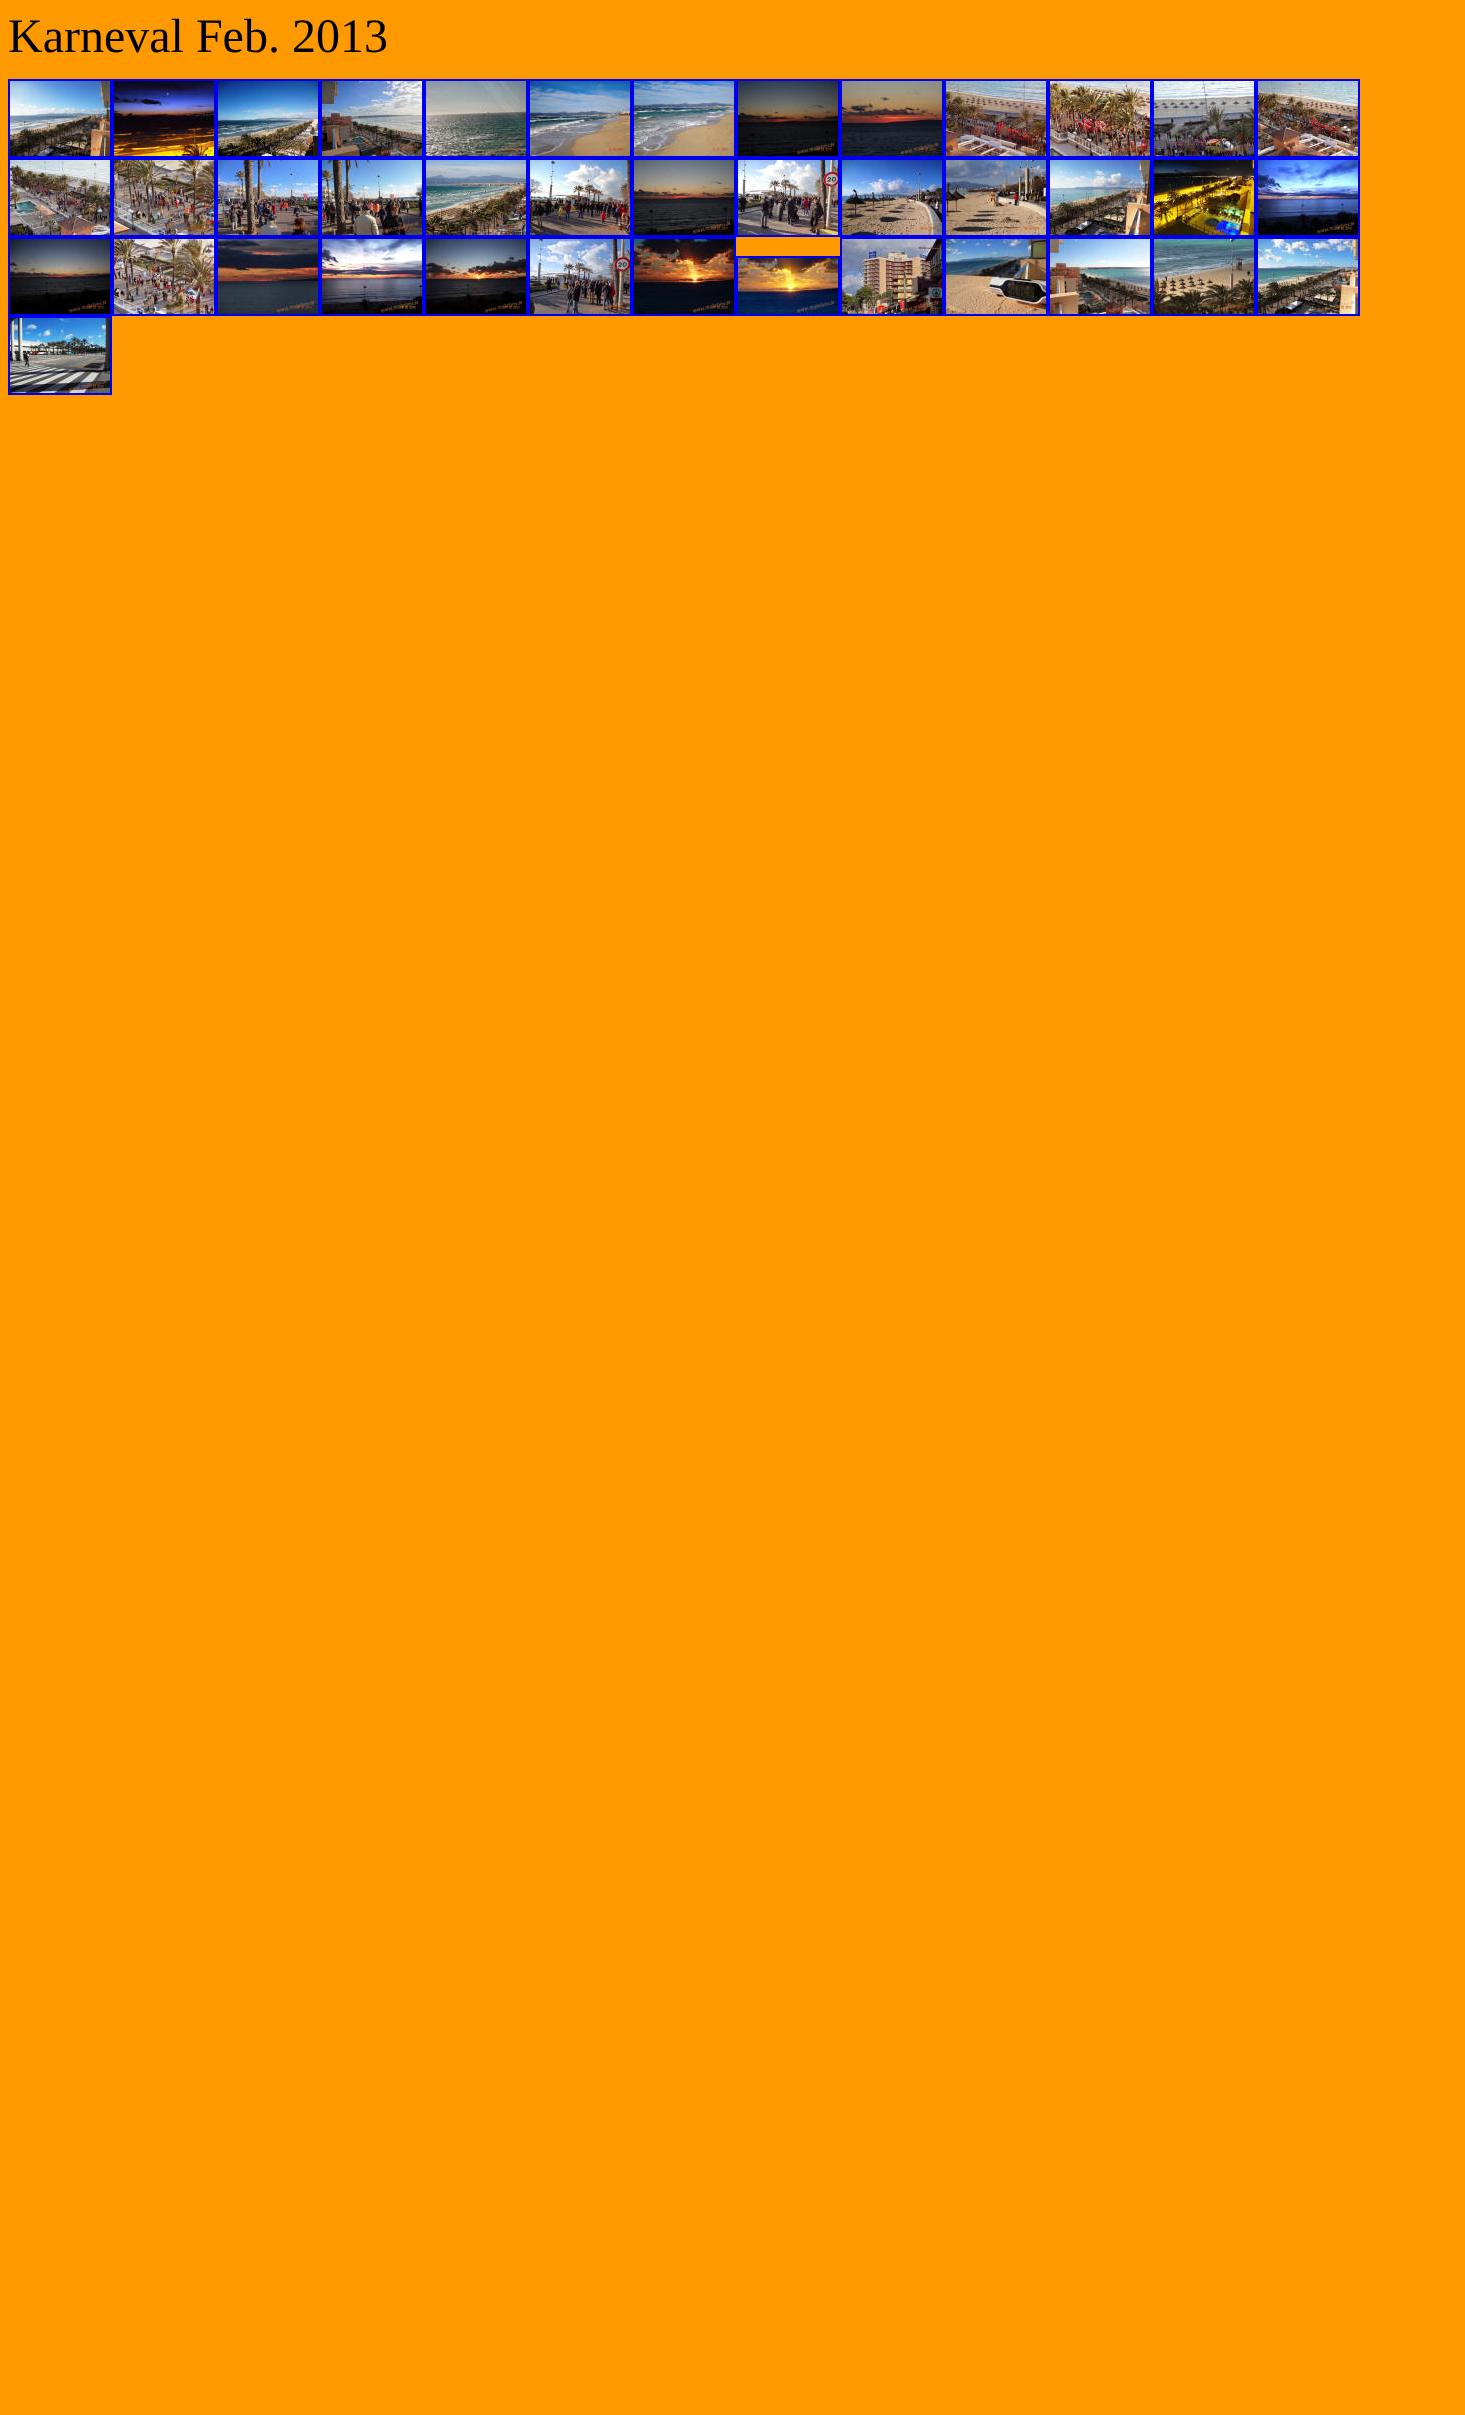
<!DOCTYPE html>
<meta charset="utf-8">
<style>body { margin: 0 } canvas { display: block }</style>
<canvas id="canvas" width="1465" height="2415"></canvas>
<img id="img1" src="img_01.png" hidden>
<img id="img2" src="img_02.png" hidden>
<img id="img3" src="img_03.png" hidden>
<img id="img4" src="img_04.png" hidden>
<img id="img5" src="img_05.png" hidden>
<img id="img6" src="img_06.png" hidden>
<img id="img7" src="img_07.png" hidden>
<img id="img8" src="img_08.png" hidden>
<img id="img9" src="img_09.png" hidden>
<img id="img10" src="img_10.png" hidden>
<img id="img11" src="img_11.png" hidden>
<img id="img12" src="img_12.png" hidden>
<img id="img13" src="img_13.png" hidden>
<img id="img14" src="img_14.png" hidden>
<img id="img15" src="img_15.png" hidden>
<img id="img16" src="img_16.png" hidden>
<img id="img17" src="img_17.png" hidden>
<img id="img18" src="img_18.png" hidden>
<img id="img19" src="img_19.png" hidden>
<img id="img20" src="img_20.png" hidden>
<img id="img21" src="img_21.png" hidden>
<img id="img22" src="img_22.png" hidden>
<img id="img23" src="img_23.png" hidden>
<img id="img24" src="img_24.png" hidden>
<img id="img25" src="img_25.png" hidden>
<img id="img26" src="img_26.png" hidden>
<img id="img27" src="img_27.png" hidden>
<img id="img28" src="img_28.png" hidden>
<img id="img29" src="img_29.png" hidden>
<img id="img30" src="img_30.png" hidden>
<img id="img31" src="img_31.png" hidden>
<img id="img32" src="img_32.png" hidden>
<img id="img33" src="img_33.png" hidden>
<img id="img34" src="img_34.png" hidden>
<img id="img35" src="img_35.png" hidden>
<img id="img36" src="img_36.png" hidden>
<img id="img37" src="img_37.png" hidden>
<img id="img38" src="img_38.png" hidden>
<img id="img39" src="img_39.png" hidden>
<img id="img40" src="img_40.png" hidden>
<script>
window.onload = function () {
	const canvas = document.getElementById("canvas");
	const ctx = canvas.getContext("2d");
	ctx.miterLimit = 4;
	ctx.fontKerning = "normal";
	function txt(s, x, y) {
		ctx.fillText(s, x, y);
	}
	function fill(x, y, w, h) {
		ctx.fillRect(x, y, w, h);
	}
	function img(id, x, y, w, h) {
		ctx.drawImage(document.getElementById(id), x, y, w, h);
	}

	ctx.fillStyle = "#FF9900";
	fill(0, 0, 1465, 2415);
	ctx.strokeStyle = "#0000EE";
	ctx.lineWidth = 2;
	ctx.strokeRect(9, 80, 102, 77);
	ctx.strokeRect(113, 80, 102, 77);
	ctx.strokeRect(217, 80, 102, 77);
	ctx.strokeRect(321, 80, 102, 77);
	ctx.strokeRect(425, 80, 102, 77);
	ctx.strokeRect(529, 80, 102, 77);
	ctx.strokeRect(633, 80, 102, 77);
	ctx.strokeRect(737, 80, 102, 77);
	ctx.strokeRect(841, 80, 102, 77);
	ctx.strokeRect(945, 80, 102, 77);
	ctx.strokeRect(1049, 80, 102, 77);
	ctx.strokeRect(1153, 80, 102, 77);
	ctx.strokeRect(1257, 80, 102, 77);
	img("img1", 10, 81, 100, 75);
	img("img2", 114, 81, 100, 75);
	img("img3", 218, 81, 100, 75);
	img("img4", 322, 81, 100, 75);
	img("img5", 426, 81, 100, 75);
	img("img6", 530, 81, 100, 75);
	img("img7", 634, 81, 100, 75);
	img("img8", 738, 81, 100, 75);
	img("img9", 842, 81, 100, 75);
	img("img10", 946, 81, 100, 75);
	img("img11", 1050, 81, 100, 75);
	img("img12", 1154, 81, 100, 75);
	img("img13", 1258, 81, 100, 75);
	ctx.strokeRect(9, 159, 102, 77);
	ctx.strokeRect(113, 159, 102, 77);
	ctx.strokeRect(217, 159, 102, 77);
	ctx.strokeRect(321, 159, 102, 77);
	ctx.strokeRect(425, 159, 102, 77);
	ctx.strokeRect(529, 159, 102, 77);
	ctx.strokeRect(633, 159, 102, 77);
	ctx.strokeRect(737, 159, 102, 77);
	ctx.strokeRect(841, 159, 102, 77);
	ctx.strokeRect(945, 159, 102, 77);
	ctx.strokeRect(1049, 159, 102, 77);
	ctx.strokeRect(1153, 159, 102, 77);
	ctx.strokeRect(1257, 159, 102, 77);
	img("img14", 10, 160, 100, 75);
	img("img15", 114, 160, 100, 75);
	img("img16", 218, 160, 100, 75);
	img("img17", 322, 160, 100, 75);
	img("img18", 426, 160, 100, 75);
	img("img19", 530, 160, 100, 75);
	img("img20", 634, 160, 100, 75);
	img("img21", 738, 160, 100, 75);
	img("img22", 842, 160, 100, 75);
	img("img23", 946, 160, 100, 75);
	img("img24", 1050, 160, 100, 75);
	img("img25", 1154, 160, 100, 75);
	img("img26", 1258, 160, 100, 75);
	ctx.strokeRect(9, 238, 102, 77);
	ctx.strokeRect(113, 238, 102, 77);
	ctx.strokeRect(217, 238, 102, 77);
	ctx.strokeRect(321, 238, 102, 77);
	ctx.strokeRect(425, 238, 102, 77);
	ctx.strokeRect(529, 238, 102, 77);
	ctx.strokeRect(633, 238, 102, 77);
	ctx.strokeRect(841, 238, 102, 77);
	ctx.strokeRect(945, 238, 102, 77);
	ctx.strokeRect(1049, 238, 102, 77);
	ctx.strokeRect(1153, 238, 102, 77);
	ctx.strokeRect(1257, 238, 102, 77);
	img("img27", 10, 239, 100, 75);
	img("img28", 114, 239, 100, 75);
	img("img29", 218, 239, 100, 75);
	img("img30", 322, 239, 100, 75);
	img("img31", 426, 239, 100, 75);
	img("img32", 530, 239, 100, 75);
	img("img33", 634, 239, 100, 75);
	ctx.strokeRect(737, 257, 102, 58);
	img("img34", 842, 239, 100, 75);
	img("img35", 946, 239, 100, 75);
	img("img36", 1050, 239, 100, 75);
	img("img37", 1154, 239, 100, 75);
	img("img38", 1258, 239, 100, 75);
	img("img39", 738, 258, 100, 56);
	ctx.strokeRect(9, 317, 102, 77);
	img("img40", 10, 318, 100, 75);
	ctx.font = "48px Liberation Serif";
	ctx.fillStyle = "#000000";
	txt("Karneval Feb. 2013", 8, 52);
};
</script>
